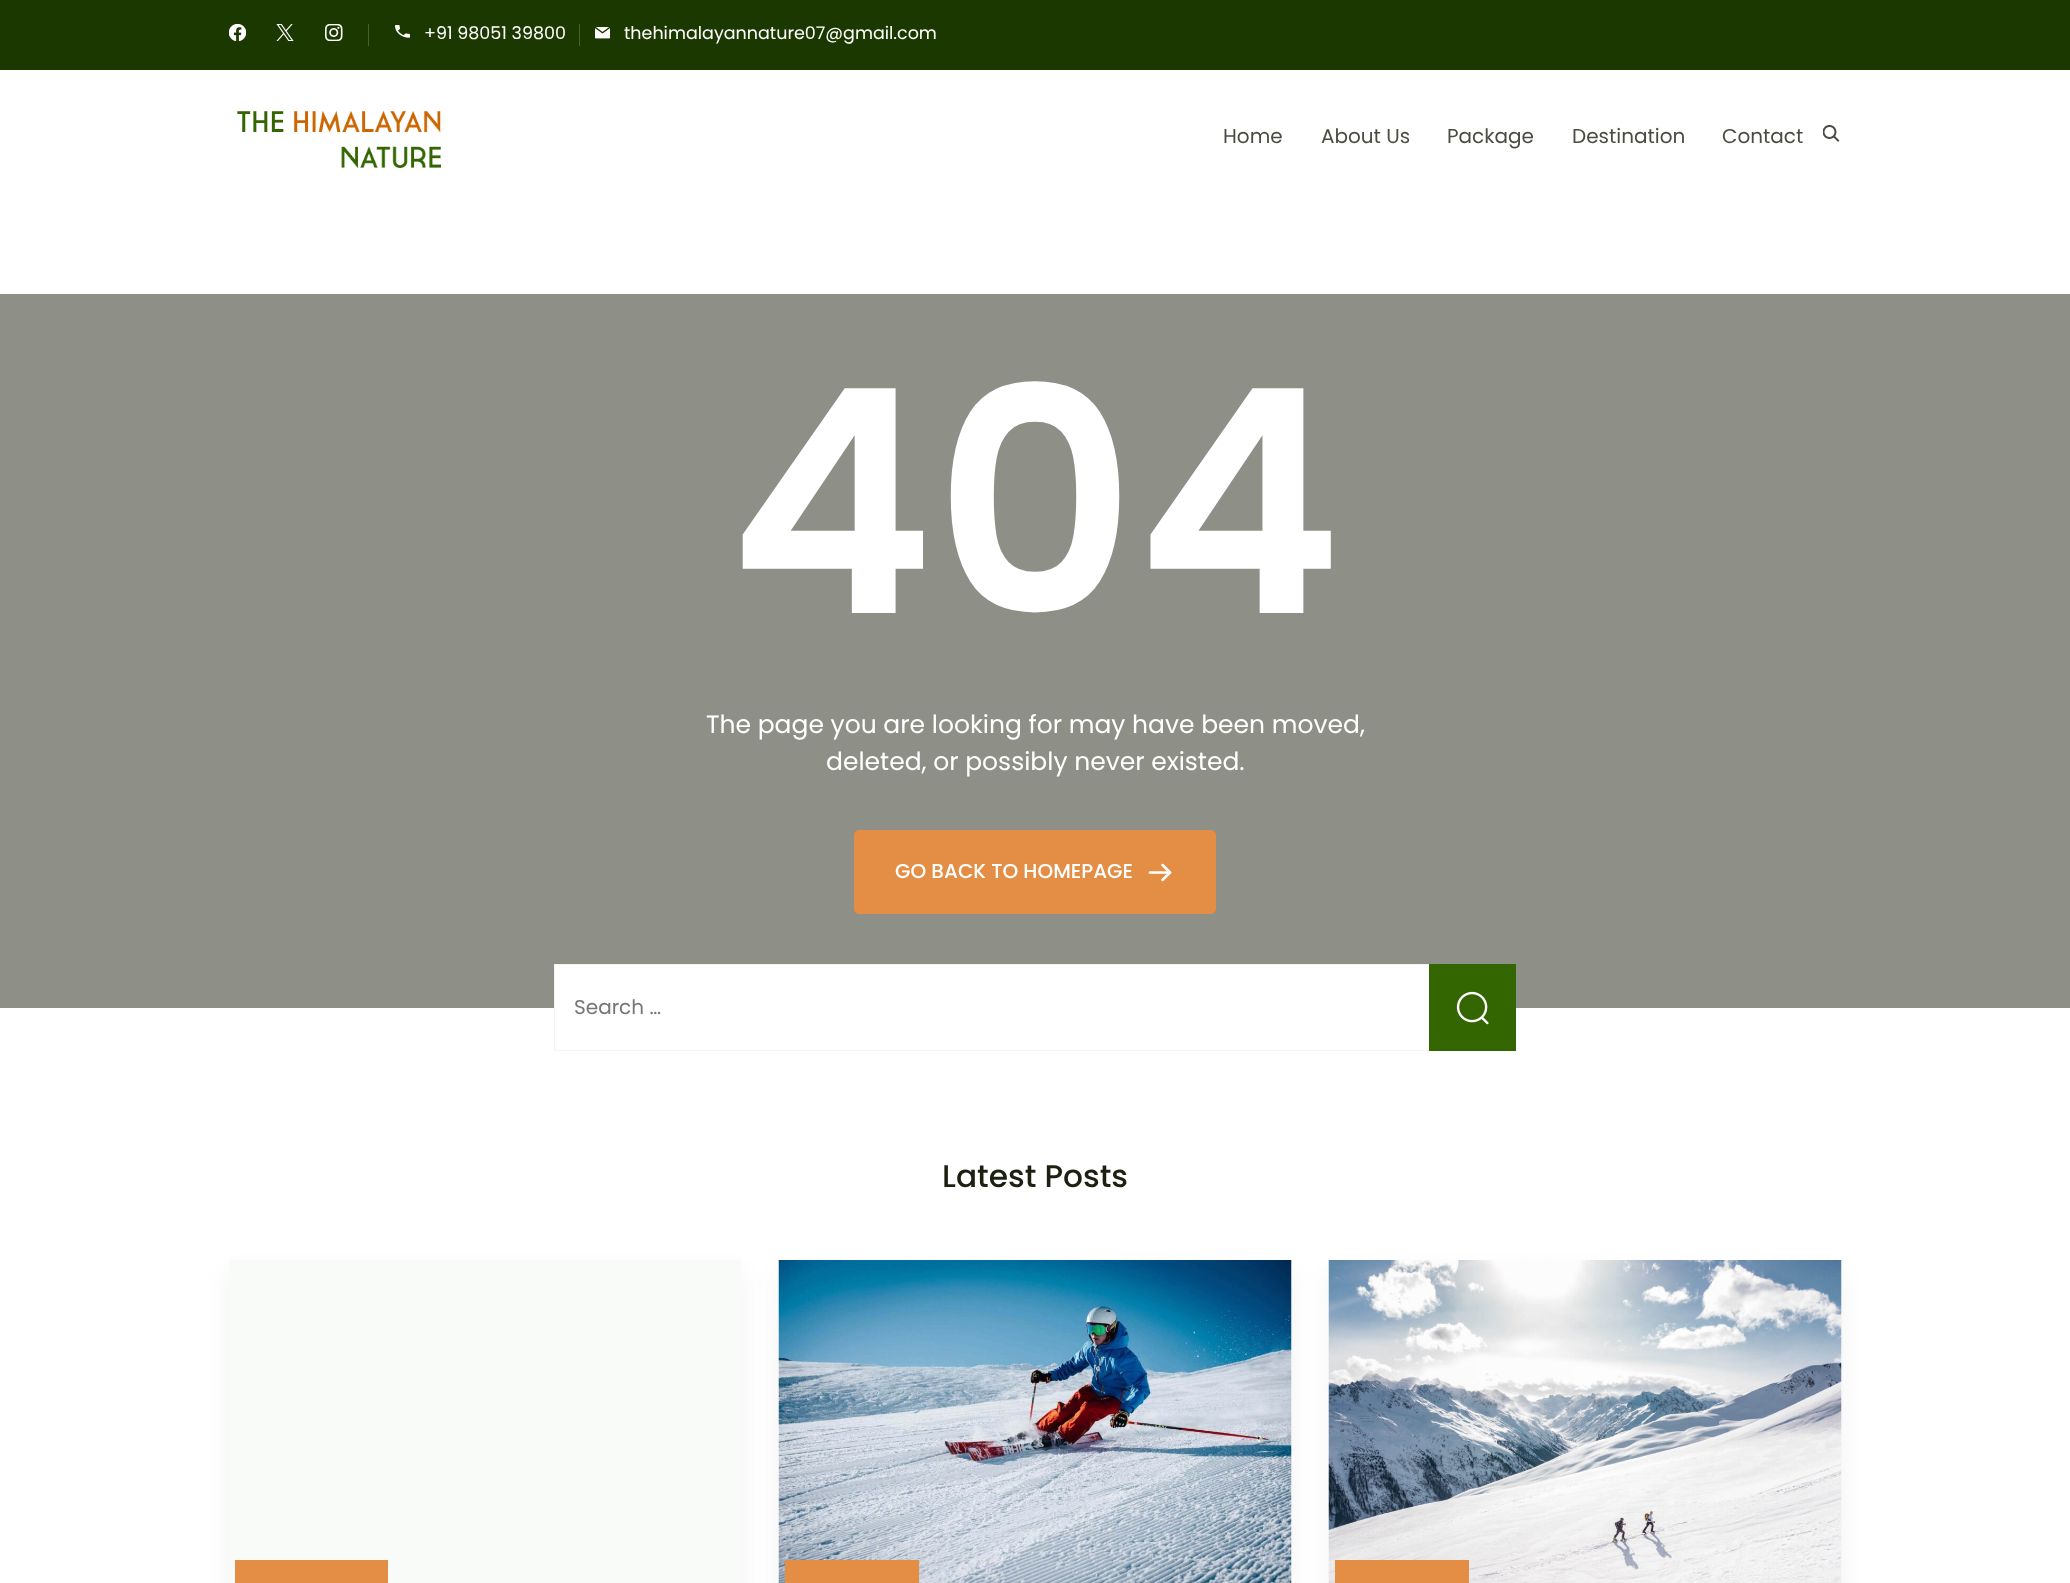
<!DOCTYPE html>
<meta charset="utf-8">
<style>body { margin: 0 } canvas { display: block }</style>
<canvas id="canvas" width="2070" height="1583"></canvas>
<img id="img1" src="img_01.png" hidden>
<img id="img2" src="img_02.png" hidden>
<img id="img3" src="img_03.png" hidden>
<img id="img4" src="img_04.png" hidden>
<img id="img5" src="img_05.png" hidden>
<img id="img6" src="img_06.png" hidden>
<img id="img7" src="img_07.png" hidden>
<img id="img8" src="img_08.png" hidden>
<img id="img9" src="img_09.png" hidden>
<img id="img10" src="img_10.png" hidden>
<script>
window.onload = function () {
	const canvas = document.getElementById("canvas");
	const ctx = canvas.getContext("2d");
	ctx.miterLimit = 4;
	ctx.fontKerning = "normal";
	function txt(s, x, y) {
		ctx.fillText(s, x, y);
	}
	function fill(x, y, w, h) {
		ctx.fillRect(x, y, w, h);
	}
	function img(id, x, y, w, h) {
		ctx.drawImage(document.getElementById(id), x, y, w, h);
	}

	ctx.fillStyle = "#FFFFFF";
	fill(0, 0, 2070, 1583);
	ctx.fillStyle = "#1C3801";
	fill(0, 0, 2070, 69);
	ctx.fillStyle = "#1C3603";
	fill(0, 69, 2070, 1);
	img("img1", 229, 24, 17, 17);
	img("img2", 276, 24, 18, 17);
	img("img3", 325, 24, 18, 17);
	ctx.fillStyle = "#496034";
	fill(368, 24, 1, 22);
	img("img4", 395, 25, 15, 13);
	fill(579, 24, 1, 22);
	img("img5", 595, 27, 15, 12);
	img("img6", 237, 110, 204, 58);
	img("img7", 1823, 125, 17, 17);
	ctx.fillStyle = "#8E9088";
	fill(0, 294, 2070, 714);
	ctx.fillStyle = "#E48E45";
	ctx.beginPath();
	ctx.roundRect(854.5, 830.5, 361, 83, 4.5);
	ctx.fill();
	ctx.strokeStyle = "#E48E45";
	ctx.stroke();
	ctx.beginPath();
	ctx.moveTo(1150, 872.5);
	ctx.lineTo(1170, 872.5);
	ctx.strokeStyle = "#FFFFFF";
	ctx.lineWidth = 2.5;
	ctx.lineCap = "round";
	ctx.stroke();
	ctx.beginPath();
	ctx.moveTo(1162.5, 865);
	ctx.lineTo(1170, 872.5);
	ctx.lineTo(1162.5, 880);
	ctx.lineJoin = "round";
	ctx.stroke();
	ctx.fillStyle = "#FFFFFF";
	fill(555, 965, 874, 43);
	ctx.strokeStyle = "#F4F4F3";
	ctx.lineWidth = 1;
	ctx.lineJoin = "miter";
	ctx.strokeRect(554.5, 964.5, 961, 86);
	ctx.fillStyle = "#336600";
	fill(1429, 964, 87, 87);
	img("img8", 1456, 991, 33, 34);
	ctx.fillStyle = "rgba(0, 0, 0, 0.05)";
	ctx.filter = "blur(12.5px)";
	ctx.beginPath();
	ctx.rect(229, 1273, 512, 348);
	ctx.fill();
	ctx.filter = "none";
	ctx.filter = "blur(12.5px)";
	ctx.beginPath();
	ctx.rect(779, 1273, 512, 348);
	ctx.fill();
	ctx.filter = "none";
	ctx.fillStyle = "#F9FBF8";
	fill(229, 1260, 512, 323);
	ctx.fillStyle = "#E48E45";
	fill(235, 1560, 153, 23);
	ctx.fillStyle = "rgba(0, 0, 0, 0.05)";
	ctx.filter = "blur(12.5px)";
	ctx.beginPath();
	ctx.rect(1329, 1273, 512, 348);
	ctx.fill();
	ctx.filter = "none";
	img("img9", 778, 1260, 514, 323);
	ctx.fillStyle = "#E48E45";
	fill(785, 1560, 134, 23);
	img("img10", 1328, 1260, 514, 323);
	fill(1335, 1560, 134, 23);
	ctx.font = "17.5px Poppins";
	ctx.fillStyle = "#FFFFFF";
	txt("+91 98051 39800", 424, 39);
	txt("thehimalayannature07@gmail.com", 624, 39);
	ctx.font = "20px Poppins";
	ctx.fillStyle = "#494D41";
	txt("Home", 1223, 143);
	txt("About Us", 1321, 143);
	txt("Package", 1447, 143);
	txt("Destination", 1572, 143);
	txt("Contact", 1722, 143);
	ctx.font = "600 312px Poppins";
	ctx.fillStyle = "#FFFFFF";
	txt("404", 728, 613);
	ctx.font = "25px Poppins";
	txt("The page you are looking for may have been moved,", 706, 733);
	txt("deleted, or possibly never existed.", 826, 770);
	ctx.font = "500 20px Poppins";
	txt("GO BACK TO HOMEPAGE", 895, 878);
	ctx.font = "20px Poppins";
	ctx.fillStyle = "#757575";
	txt("Search …", 574, 1014);
	ctx.font = "500 31.25px Poppins";
	ctx.fillStyle = "#1C2011";
	txt("Latest Posts", 942, 1187);
};
</script>
